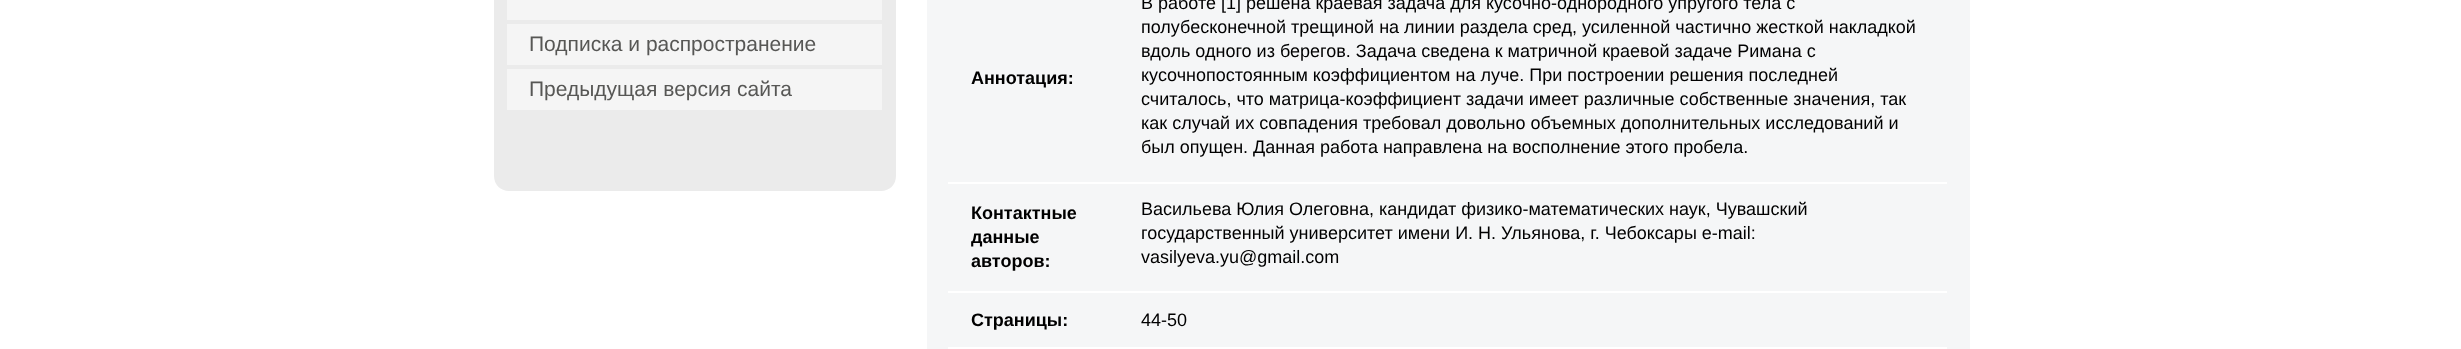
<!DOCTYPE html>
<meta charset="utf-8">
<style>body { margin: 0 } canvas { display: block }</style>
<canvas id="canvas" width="2461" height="349"></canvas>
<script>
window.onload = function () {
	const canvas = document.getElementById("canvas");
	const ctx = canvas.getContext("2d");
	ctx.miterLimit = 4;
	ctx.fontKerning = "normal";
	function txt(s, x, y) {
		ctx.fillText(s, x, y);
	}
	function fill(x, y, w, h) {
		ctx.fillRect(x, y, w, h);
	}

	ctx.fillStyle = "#FFFFFF";
	fill(0, 0, 2461, 349);
	ctx.fillStyle = "#EBEBEB";
	ctx.beginPath();
	ctx.moveTo(494, -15);
	ctx.lineTo(896, -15);
	ctx.lineTo(896, 176);
	ctx.bezierCurveTo(896, 184.5, 889.5, 191, 881, 191);
	ctx.lineTo(509, 191);
	ctx.bezierCurveTo(500.5, 191, 494, 184.5, 494, 176);
	ctx.closePath();
	ctx.fill();
	ctx.fillStyle = "#F5F5F5";
	fill(507, 0, 375, 20);
	fill(507, 24, 375, 41);
	fill(507, 69, 375, 41);
	ctx.fillStyle = "#F5F6F7";
	fill(927, 0, 1043, 349);
	ctx.fillStyle = "#FFFFFF";
	fill(948, 182, 999, 2);
	fill(948, 291, 999, 2);
	fill(948, 347, 999, 2);
	ctx.font = "21px Liberation Sans";
	ctx.fillStyle = "#575755";
	txt("Подписка и распространение", 529, 51);
	txt("Предыдущая версия сайта", 529, 96);
	ctx.font = "bold 18px Liberation Sans";
	ctx.fillStyle = "#000000";
	txt("Аннотация:", 971, 84);
	ctx.font = "18px Liberation Sans";
	txt("В работе [1] решена краевая задача для кусочно-однородного упругого тела с", 1141, 9);
	txt("полубесконечной трещиной на линии раздела сред, усиленной частично жесткой накладкой", 1141, 33);
	txt("вдоль одного из берегов. Задача сведена к матричной краевой задаче Римана с", 1141, 57);
	txt("кусочнопостоянным коэффициентом на луче. При построении решения последней", 1141, 81);
	txt("считалось, что матрица-коэффициент задачи имеет различные собственные значения, так", 1141, 105);
	txt("как случай их совпадения требовал довольно объемных дополнительных исследований и", 1141, 129);
	txt("был опущен. Данная работа направлена на восполнение этого пробела.", 1141, 153);
	ctx.font = "bold 18px Liberation Sans";
	txt("Контактные", 971, 219);
	txt("данные", 971, 243);
	txt("авторов:", 971, 267);
	ctx.font = "18px Liberation Sans";
	txt("Васильева Юлия Олеговна, кандидат физико-математических наук, Чувашский", 1141, 215);
	txt("государственный университет имени И. Н. Ульянова, г. Чебоксары e-mail:", 1141, 239);
	txt("vasilyeva.yu@gmail.com", 1141, 263);
	ctx.font = "bold 18px Liberation Sans";
	txt("Страницы:", 971, 326);
	ctx.font = "18px Liberation Sans";
	txt("44-50", 1141, 326);
};
</script>
